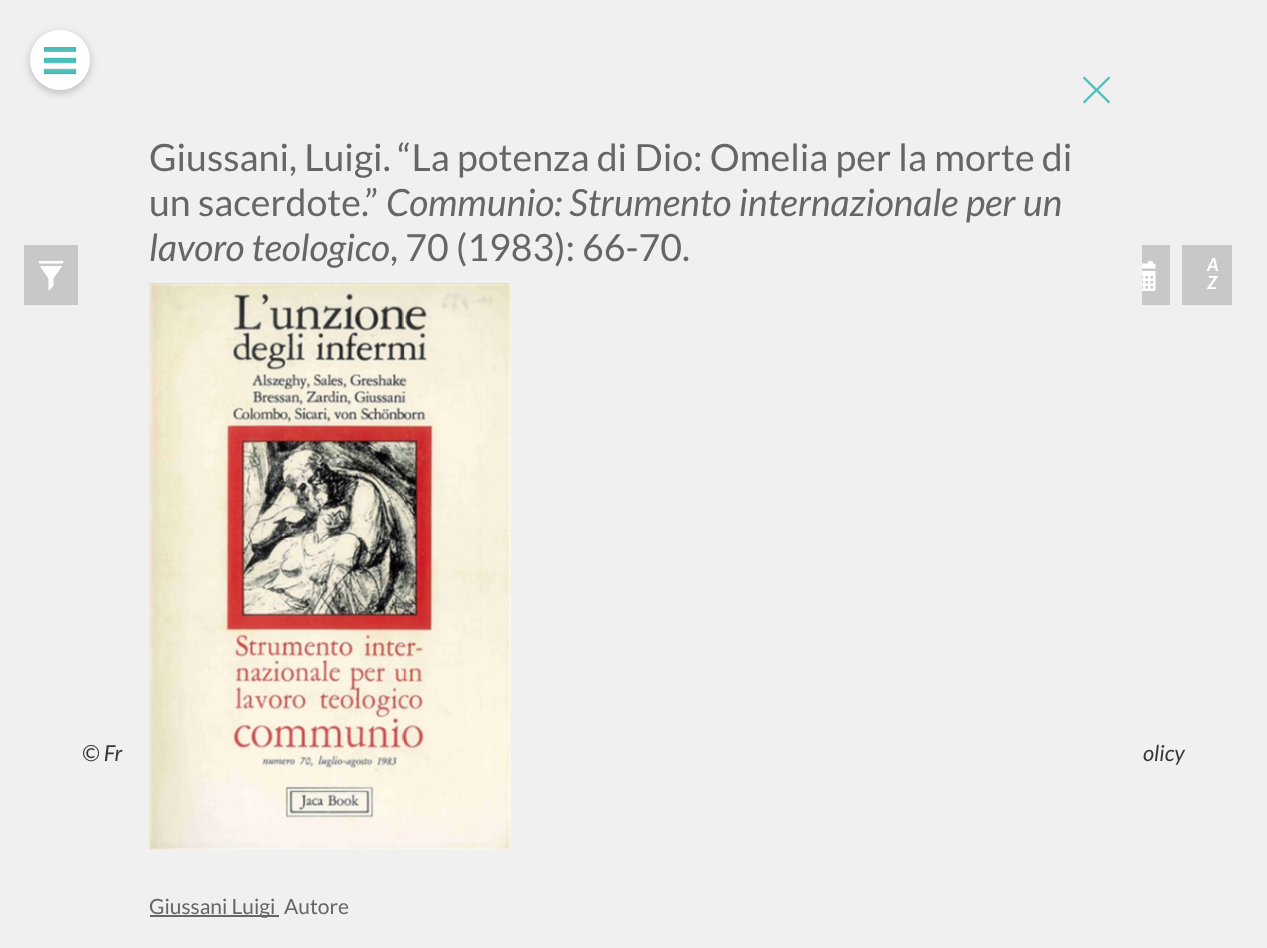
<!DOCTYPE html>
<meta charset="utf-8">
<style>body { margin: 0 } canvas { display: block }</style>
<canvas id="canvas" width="1267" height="948"></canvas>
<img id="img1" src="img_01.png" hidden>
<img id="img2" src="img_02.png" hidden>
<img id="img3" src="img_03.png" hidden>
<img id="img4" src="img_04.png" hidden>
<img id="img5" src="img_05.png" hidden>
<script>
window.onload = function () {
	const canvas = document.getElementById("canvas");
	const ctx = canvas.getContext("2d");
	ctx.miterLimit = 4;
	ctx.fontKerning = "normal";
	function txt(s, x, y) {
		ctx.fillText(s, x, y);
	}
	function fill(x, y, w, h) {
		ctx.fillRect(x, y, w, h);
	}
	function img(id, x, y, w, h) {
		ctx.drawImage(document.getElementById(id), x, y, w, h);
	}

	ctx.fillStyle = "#F0F0F0";
	fill(0, 0, 1267, 948);
	ctx.fillStyle = "rgba(0, 0, 0, 0.22)";
	ctx.filter = "blur(4px)";
	ctx.beginPath();
	ctx.roundRect(30, 33, 60, 60, 30);
	ctx.fill();
	ctx.filter = "none";
	ctx.fillStyle = "#FFFFFF";
	ctx.beginPath();
	ctx.arc(60, 60, 30, 0, Math.PI * 2);
	ctx.fill();
	img("img1", 43, 47, 34, 28);
	img("img2", 1082, 76, 29, 28);
	img("img3", 149, 283, 362, 567);
	ctx.fillStyle = "#666666";
	fill(150, 915, 129, 2);
	ctx.fillStyle = "#C8C8C8";
	fill(24, 245, 54, 60);
	img("img4", 38, 261, 26, 30);
	fill(1142, 245, 28, 60);
	img("img5", 1142, 261, 14, 30);
	fill(1182, 245, 50, 60);
	ctx.font = "37.5px Lato";
	ctx.fillStyle = "#666666";
	txt("Giussani, Luigi. “La potenza di Dio: Omelia per la morte di", 149, 171);
	txt("un sacerdote.”", 149, 216);
	ctx.font = "italic 37.5px Lato";
	txt("Communio: Strumento internazionale per un", 386, 216);
	txt("lavoro teologico", 149, 261);
	ctx.font = "37.5px Lato";
	txt(", 70 (1983): 66-70.", 390, 261);
	ctx.font = "21px Lato";
	txt("Giussani Luigi", 149, 914);
	txt("Autore", 284, 914);
	ctx.letterSpacing = "1px";
	ctx.font = "italic bold 18px Lato";
	ctx.fillStyle = "#FFFFFF";
	txt("A", 1207, 271);
	txt("Z", 1207, 289);
	ctx.letterSpacing = "0px";
	ctx.font = "italic 22px Lato";
	ctx.fillStyle = "#373737";
	txt("© Fr", 82, 761);
	txt("olicy", 1143, 761);
};
</script>
